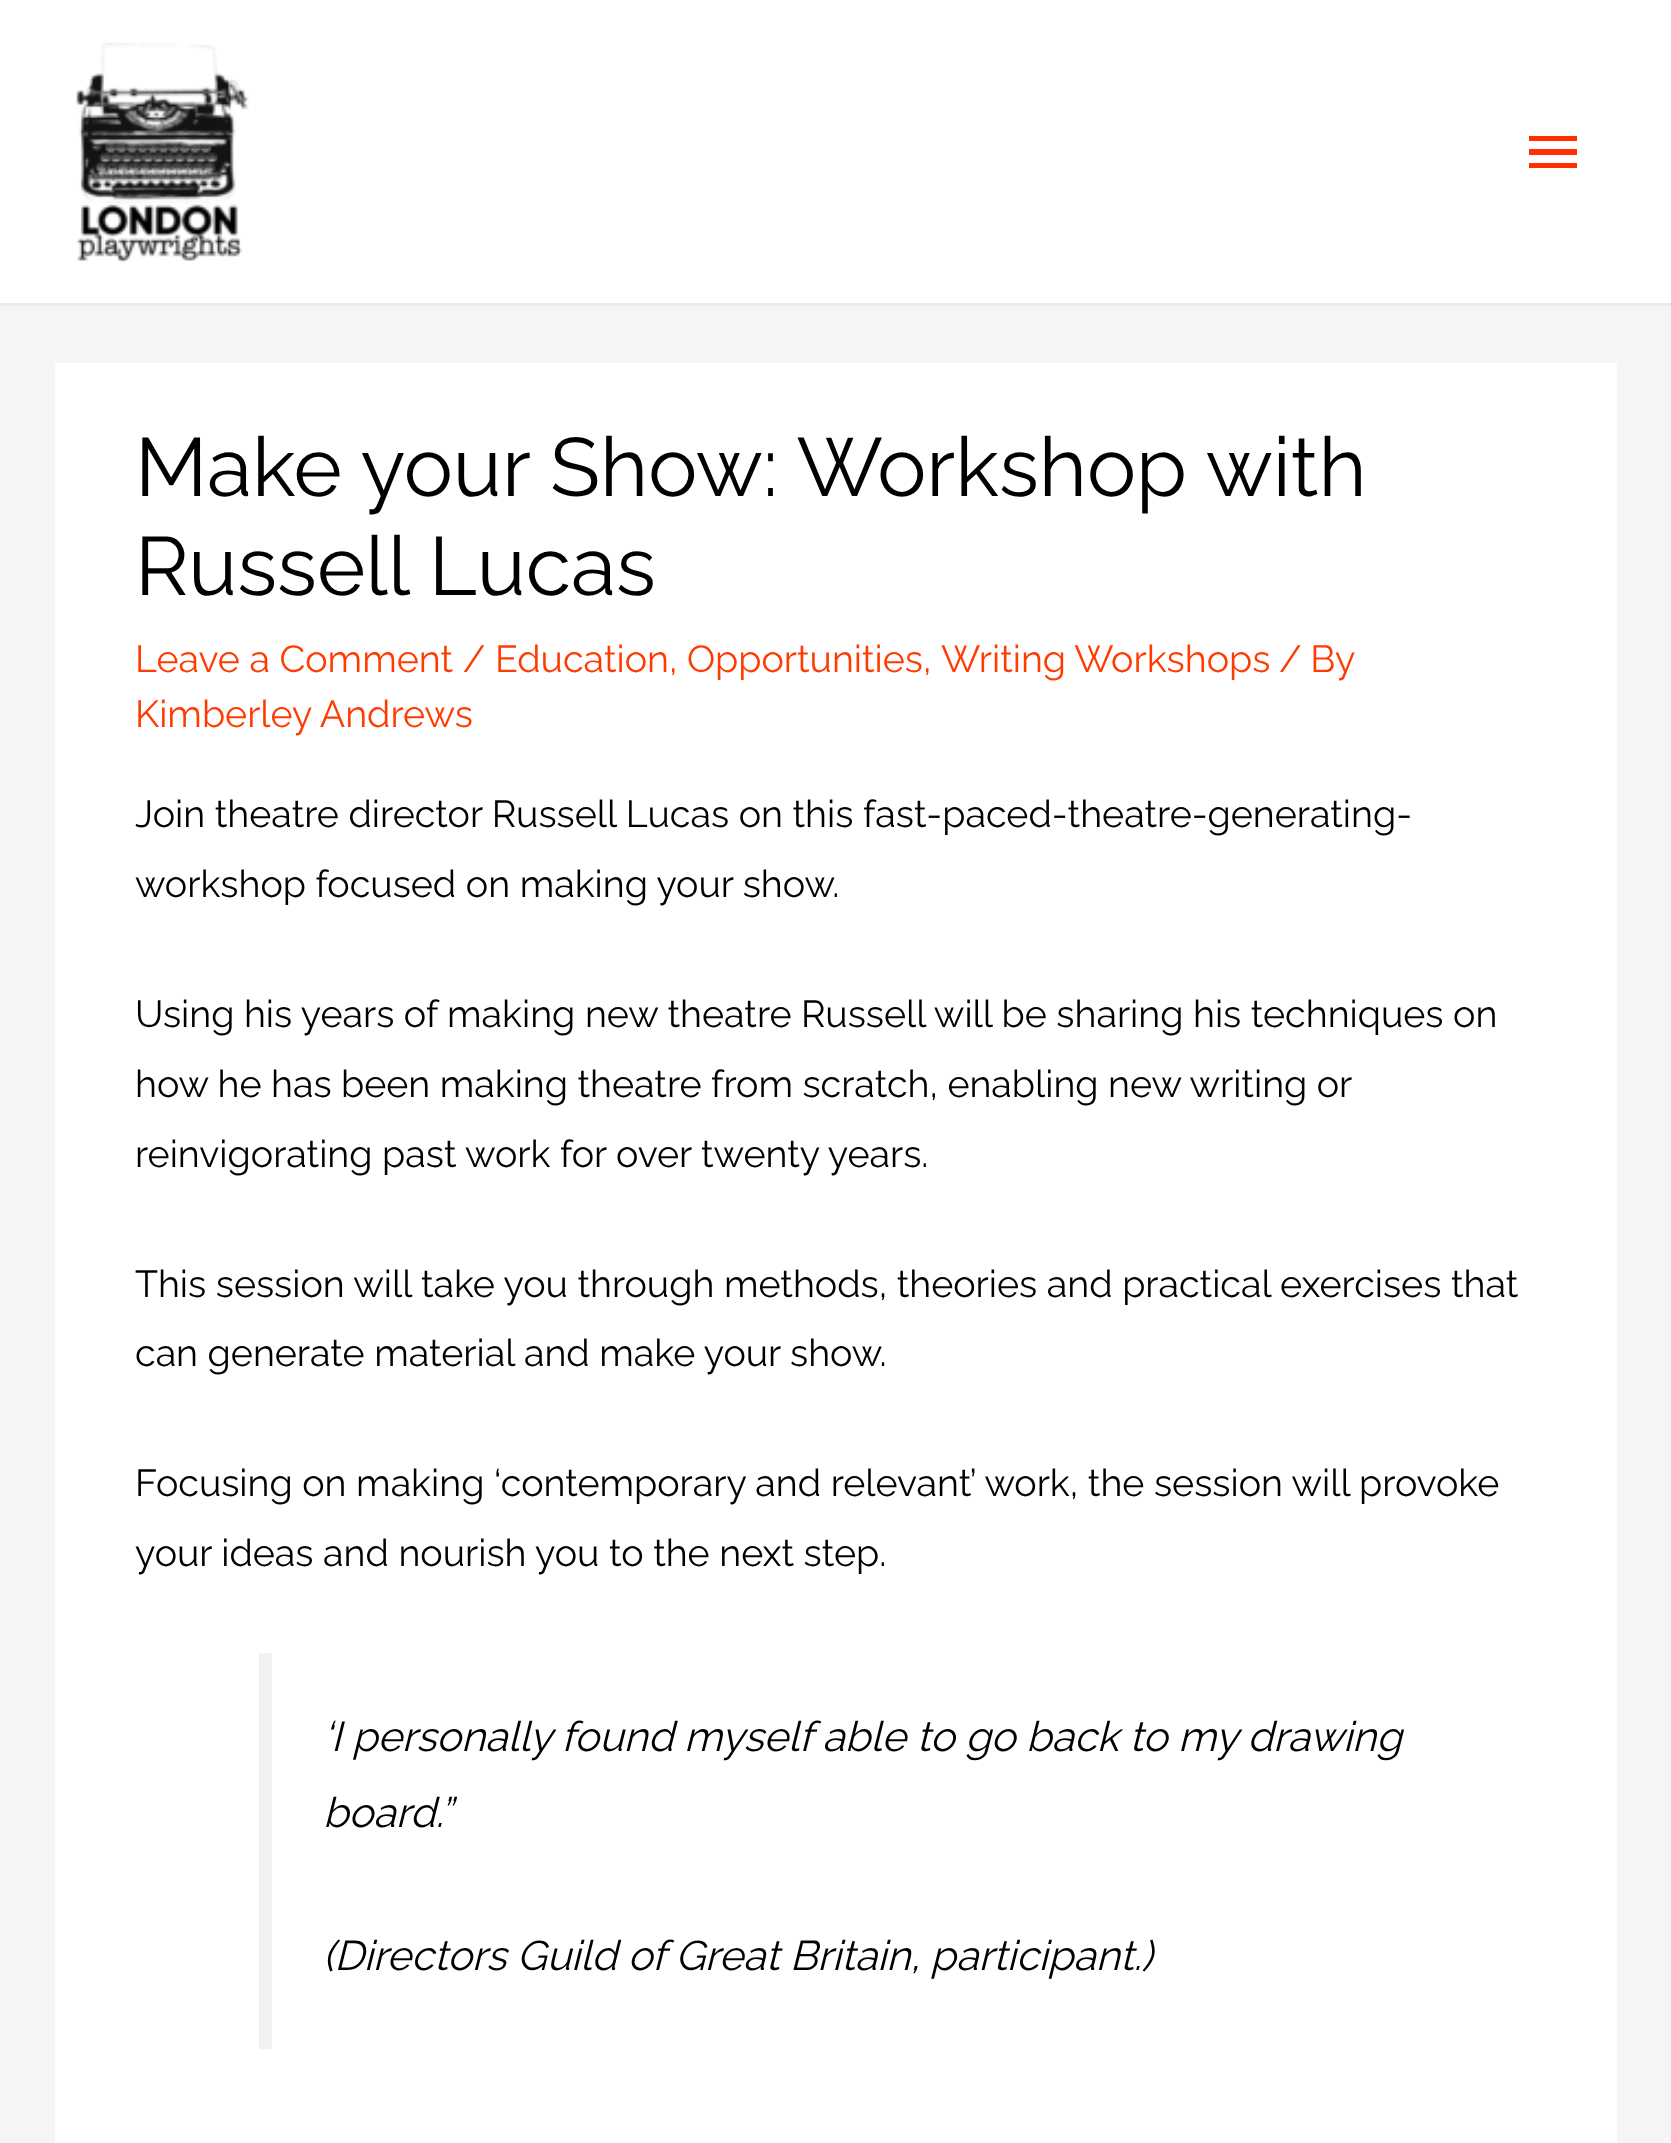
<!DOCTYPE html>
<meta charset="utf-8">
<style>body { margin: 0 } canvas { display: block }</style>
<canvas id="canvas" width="1671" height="2143"></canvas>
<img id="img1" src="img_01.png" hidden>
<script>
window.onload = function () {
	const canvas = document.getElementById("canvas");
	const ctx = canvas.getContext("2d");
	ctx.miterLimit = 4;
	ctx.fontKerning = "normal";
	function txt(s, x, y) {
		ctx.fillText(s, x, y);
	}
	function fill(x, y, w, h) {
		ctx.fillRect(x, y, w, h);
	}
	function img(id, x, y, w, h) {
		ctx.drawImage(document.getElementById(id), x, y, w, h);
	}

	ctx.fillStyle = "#F5F5F5";
	fill(0, 0, 1671, 2143);
	ctx.fillStyle = "#EAEAEA";
	fill(0, 303, 1671, 3);
	ctx.fillStyle = "#FFFFFF";
	fill(0, 0, 1671, 303);
	img("img1", 76, 42, 173, 221);
	ctx.fillStyle = "#FF2D00";
	ctx.beginPath();
	ctx.moveTo(1529, 136);
	ctx.lineTo(1577, 136);
	ctx.lineTo(1577, 141);
	ctx.lineTo(1529, 141);
	ctx.closePath();
	ctx.moveTo(1529, 155);
	ctx.lineTo(1529, 149);
	ctx.lineTo(1577, 149);
	ctx.lineTo(1577, 155);
	ctx.closePath();
	ctx.moveTo(1529, 168);
	ctx.lineTo(1529, 163);
	ctx.lineTo(1577, 163);
	ctx.lineTo(1577, 168);
	ctx.closePath();
	ctx.fill();
	ctx.fillStyle = "#FFFFFF";
	fill(55, 363, 1562, 1780);
	ctx.fillStyle = "#F2F2F2";
	fill(259, 1653, 13, 396);
	ctx.font = "100 82.5px Raleway";
	ctx.fillStyle = "#000000";
	txt("Make your Show: Workshop with", 135, 496);
	txt("Russell Lucas", 135, 595);
	ctx.font = "100 37.6px Raleway";
	ctx.fillStyle = "#FF3B00";
	txt("Leave a Comment / Education, Opportunities,", 135, 672);
	txt("Writing Workshops", 941, 672);
	ctx.wordSpacing = "-1px";
	txt("/ By", 1279, 672);
	ctx.wordSpacing = "0px";
	txt("Kimberley Andrews", 135, 727);
	ctx.fillStyle = "#000000";
	txt("Join theatre director Russell Lucas on this fast-paced-theatre-generating-", 135, 827);
	txt("workshop focused on making your show.", 135, 897);
	txt("Using his years of making new theatre Russell will be sharing his techniques on", 135, 1027);
	ctx.wordSpacing = "-0.1px";
	txt("how he has been making theatre from scratch, enabling new writing or", 135, 1097);
	ctx.wordSpacing = "0px";
	txt("reinvigorating past work for over twenty years.", 135, 1167);
	txt("This session will take you through methods, theories and practical exercises that", 135, 1297);
	txt("can generate material and make your show.", 135, 1366);
	txt("Focusing on making ‘contemporary and relevant’ work, the session will provoke", 135, 1496);
	txt("your ideas and nourish you to the next step.", 135, 1566);
	ctx.font = "italic 100 41.4px Raleway";
	txt("‘I personally found myself able to go back to my drawing", 323, 1751);
	txt("board.”", 323, 1827);
	txt("(Directors Guild of Great Britain, participant.)", 323, 1970);
};
</script>
